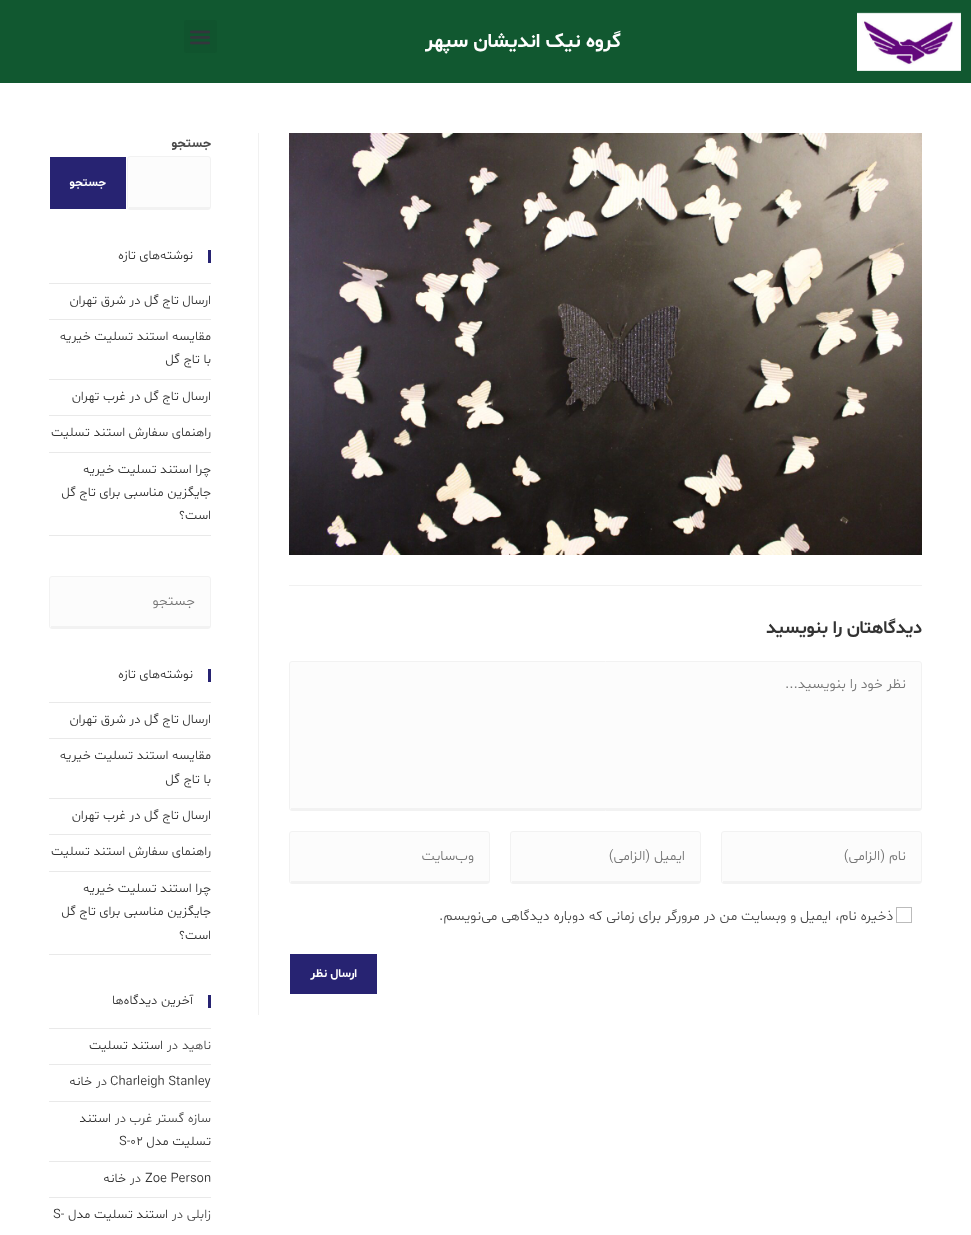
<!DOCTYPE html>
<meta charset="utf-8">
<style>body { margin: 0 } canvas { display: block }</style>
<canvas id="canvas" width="971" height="1235"></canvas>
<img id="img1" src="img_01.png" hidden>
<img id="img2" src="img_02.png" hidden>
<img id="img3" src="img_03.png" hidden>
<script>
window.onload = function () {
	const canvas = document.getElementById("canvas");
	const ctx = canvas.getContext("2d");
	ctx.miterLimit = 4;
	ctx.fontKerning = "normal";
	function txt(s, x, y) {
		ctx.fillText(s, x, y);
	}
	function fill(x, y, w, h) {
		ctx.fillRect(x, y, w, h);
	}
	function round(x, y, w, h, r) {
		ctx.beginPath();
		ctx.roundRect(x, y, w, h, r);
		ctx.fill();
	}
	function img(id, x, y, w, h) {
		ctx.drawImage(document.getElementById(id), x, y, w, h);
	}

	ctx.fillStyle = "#FFFFFF";
	fill(0, 0, 971, 1235);
	ctx.fillStyle = "#115830";
	fill(0, 0, 971, 83);
	img("img1", 857, 12, 104, 59);
	ctx.fillStyle = "#10542E";
	round(184, 20, 33, 33, 3);
	img("img2", 190, 30, 20, 15);
	ctx.fillStyle = "#F1F1F1";
	fill(258, 133, 1, 882);
	img("img3", 289, 133, 633, 422);
	fill(289, 585, 633, 1);
	ctx.fillStyle = "#FCFCFC";
	ctx.beginPath();
	ctx.moveTo(292, 662);
	ctx.lineTo(919, 662);
	ctx.bezierCurveTo(920, 662, 921, 663, 921, 664);
	ctx.lineTo(921, 808);
	ctx.lineTo(290, 808);
	ctx.lineTo(290, 664);
	ctx.bezierCurveTo(290, 663, 291, 662, 292, 662);
	ctx.closePath();
	ctx.fill();
	ctx.beginPath();
	ctx.roundRect(289.5, 661.5, 632, 149, 2.5);
	ctx.strokeStyle = "#F2F2F2";
	ctx.stroke();
	ctx.fillStyle = "#F2F2F2";
	fill(291, 808, 630, 2);
	ctx.fillStyle = "#FCFCFC";
	ctx.beginPath();
	ctx.moveTo(724, 832);
	ctx.lineTo(919, 832);
	ctx.bezierCurveTo(920, 832, 921, 833, 921, 834);
	ctx.lineTo(921, 881);
	ctx.lineTo(722, 881);
	ctx.lineTo(722, 834);
	ctx.bezierCurveTo(722, 833, 723, 832, 724, 832);
	ctx.closePath();
	ctx.fill();
	ctx.beginPath();
	ctx.roundRect(721.5, 831.5, 200, 52, 2.5);
	ctx.stroke();
	ctx.fillStyle = "#F2F2F2";
	fill(723, 881, 198, 2);
	ctx.fillStyle = "#FCFCFC";
	ctx.beginPath();
	ctx.moveTo(513, 832);
	ctx.lineTo(698, 832);
	ctx.bezierCurveTo(699, 832, 700, 833, 700, 834);
	ctx.lineTo(700, 881);
	ctx.lineTo(511, 881);
	ctx.lineTo(511, 834);
	ctx.bezierCurveTo(511, 833, 512, 832, 513, 832);
	ctx.closePath();
	ctx.fill();
	ctx.beginPath();
	ctx.roundRect(510.5, 831.5, 190, 52, 2.5);
	ctx.stroke();
	ctx.fillStyle = "#F2F2F2";
	fill(512, 881, 188, 2);
	ctx.fillStyle = "#FCFCFC";
	ctx.beginPath();
	ctx.moveTo(292, 832);
	ctx.lineTo(487, 832);
	ctx.bezierCurveTo(488, 832, 489, 833, 489, 834);
	ctx.lineTo(489, 881);
	ctx.lineTo(290, 881);
	ctx.lineTo(290, 834);
	ctx.bezierCurveTo(290, 833, 291, 832, 292, 832);
	ctx.closePath();
	ctx.fill();
	ctx.beginPath();
	ctx.roundRect(289.5, 831.5, 200, 52, 2.5);
	ctx.stroke();
	ctx.fillStyle = "#F2F2F2";
	fill(291, 881, 198, 2);
	ctx.strokeStyle = "#BBBBBB";
	ctx.strokeRect(896.5, 907.5, 15, 15);
	ctx.fillStyle = "#272372";
	fill(290, 954, 87, 40);
	ctx.fillStyle = "#FCFCFC";
	ctx.beginPath();
	ctx.moveTo(130, 157);
	ctx.lineTo(208, 157);
	ctx.bezierCurveTo(209, 157, 210, 158, 210, 159);
	ctx.lineTo(210, 207);
	ctx.lineTo(128, 207);
	ctx.lineTo(128, 159);
	ctx.bezierCurveTo(128, 158, 129, 157, 130, 157);
	ctx.closePath();
	ctx.fill();
	ctx.beginPath();
	ctx.roundRect(127.5, 156.5, 83, 53, 2.5);
	ctx.strokeStyle = "#F2F2F2";
	ctx.stroke();
	ctx.fillStyle = "#F2F2F2";
	fill(129, 207, 81, 2);
	ctx.fillStyle = "#272372";
	fill(50, 157, 76, 52);
	fill(208, 250, 3, 13);
	ctx.fillStyle = "#E9E9E9";
	fill(49, 283, 162, 1);
	fill(49, 319, 162, 1);
	fill(49, 379, 162, 1);
	fill(49, 415, 162, 1);
	fill(49, 452, 162, 1);
	fill(49, 535, 162, 1);
	ctx.fillStyle = "#FCFCFC";
	ctx.beginPath();
	ctx.moveTo(52, 577);
	ctx.lineTo(208, 577);
	ctx.bezierCurveTo(209, 577, 210, 578, 210, 579);
	ctx.lineTo(210, 626);
	ctx.lineTo(50, 626);
	ctx.lineTo(50, 579);
	ctx.bezierCurveTo(50, 578, 51, 577, 52, 577);
	ctx.closePath();
	ctx.fill();
	ctx.beginPath();
	ctx.roundRect(49.5, 576.5, 161, 52, 2.5);
	ctx.stroke();
	ctx.fillStyle = "#F2F2F2";
	fill(51, 626, 159, 2);
	ctx.fillStyle = "#272372";
	fill(208, 669, 3, 13);
	ctx.fillStyle = "#E9E9E9";
	fill(49, 702, 162, 1);
	fill(49, 738, 162, 1);
	fill(49, 798, 162, 1);
	fill(49, 834, 162, 1);
	fill(49, 871, 162, 1);
	fill(49, 954, 162, 1);
	ctx.fillStyle = "#272372";
	fill(208, 995, 3, 13);
	ctx.fillStyle = "#E9E9E9";
	fill(49, 1028, 162, 1);
	fill(49, 1064, 162, 1);
	fill(49, 1101, 162, 1);
	fill(49, 1161, 162, 1);
	fill(49, 1197, 162, 1);
	ctx.direction = "rtl";
	ctx.font = "bold 20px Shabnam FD";
	ctx.fillStyle = "#FFFFFF";
	txt("گروه نیک اندیشان سپهر", 621, 47);
	ctx.font = "bold 18px Shabnam FD";
	ctx.fillStyle = "#333333";
	txt("دیدگاهتان را بنویسید", 922, 633);
	ctx.font = "300 14px Shabnam FD";
	ctx.fillStyle = "#757575";
	txt("نظر خود را بنویسید...", 906, 688);
	txt("نام (الزامی)", 906, 860);
	txt("ایمیل (الزامی)", 685, 860);
	txt("وب‌سایت", 474, 860);
	ctx.fillStyle = "#4A4A4A";
	txt("ذخیره نام، ایمیل و وبسایت من در مرورگر برای زمانی که دوباره دیدگاهی می‌نویسم.", 893, 920);
	ctx.font = "bold 12px Shabnam FD";
	ctx.fillStyle = "#FFFFFF";
	txt("ارسال نظر", 357, 977);
	ctx.font = "bold 13px Shabnam FD";
	ctx.fillStyle = "#4A4A4A";
	txt("جستجو", 211, 147);
	ctx.font = "bold 12px Shabnam FD";
	ctx.fillStyle = "#FFFFFF";
	txt("جستجو", 106, 186);
	ctx.font = "300 13px Shabnam FD";
	ctx.fillStyle = "#333333";
	txt("نوشته‌های تازه", 193, 259);
	txt("ارسال تاج گل در شرق تهران", 211, 304);
	txt("مقایسه استند تسلیت خیریه", 211, 340);
	txt("با تاج گل", 211, 363);
	txt("ارسال تاج گل در غرب تهران", 211, 400);
	txt("راهنمای سفارش استند تسلیت", 211, 436);
	txt("چرا استند تسلیت خیریه", 211, 473);
	txt("جایگزین مناسبی برای تاج گل", 211, 496);
	txt("است؟", 211, 519);
	ctx.font = "300 14px Shabnam FD";
	ctx.fillStyle = "#757575";
	txt("جستجو", 195, 605);
	ctx.font = "300 13px Shabnam FD";
	ctx.fillStyle = "#333333";
	txt("نوشته‌های تازه", 193, 678);
	txt("ارسال تاج گل در شرق تهران", 211, 723);
	txt("مقایسه استند تسلیت خیریه", 211, 759);
	txt("با تاج گل", 211, 783);
	txt("ارسال تاج گل در غرب تهران", 211, 819);
	txt("راهنمای سفارش استند تسلیت", 211, 855);
	txt("چرا استند تسلیت خیریه", 211, 892);
	txt("جایگزین مناسبی برای تاج گل", 211, 915);
	txt("است؟", 211, 939);
	txt("آخرین دیدگاه‌ها", 193, 1004);
	ctx.fillStyle = "#4A4A4A";
	txt("ناهید", 211, 1049);
	txt("در", 178, 1049);
	ctx.fillStyle = "#333333";
	txt("استند تسلیت", 163, 1049);
	ctx.direction = "ltr";
	txt("Charleigh Stanley", 110, 1085);
	ctx.direction = "rtl";
	ctx.fillStyle = "#4A4A4A";
	txt("در", 107, 1085);
	ctx.fillStyle = "#333333";
	txt("خانه", 92, 1085);
	ctx.fillStyle = "#4A4A4A";
	txt("سازه گستر غرب", 211, 1122);
	txt("در", 126, 1122);
	ctx.fillStyle = "#333333";
	txt("استند", 111, 1122);
	txt("تسلیت مدل", 211, 1145);
	ctx.direction = "ltr";
	txt("S-02", 119, 1145);
	txt("Zoe Person", 145, 1182);
	ctx.direction = "rtl";
	ctx.fillStyle = "#4A4A4A";
	txt("در", 141, 1182);
	ctx.fillStyle = "#333333";
	txt("خانه", 126, 1182);
	ctx.fillStyle = "#4A4A4A";
	txt("زابلی", 211, 1218);
	txt("در", 183, 1218);
	ctx.fillStyle = "#333333";
	txt("استند تسلیت مدل", 168, 1218);
	ctx.direction = "ltr";
	txt("S-", 53, 1218);
};
</script>
